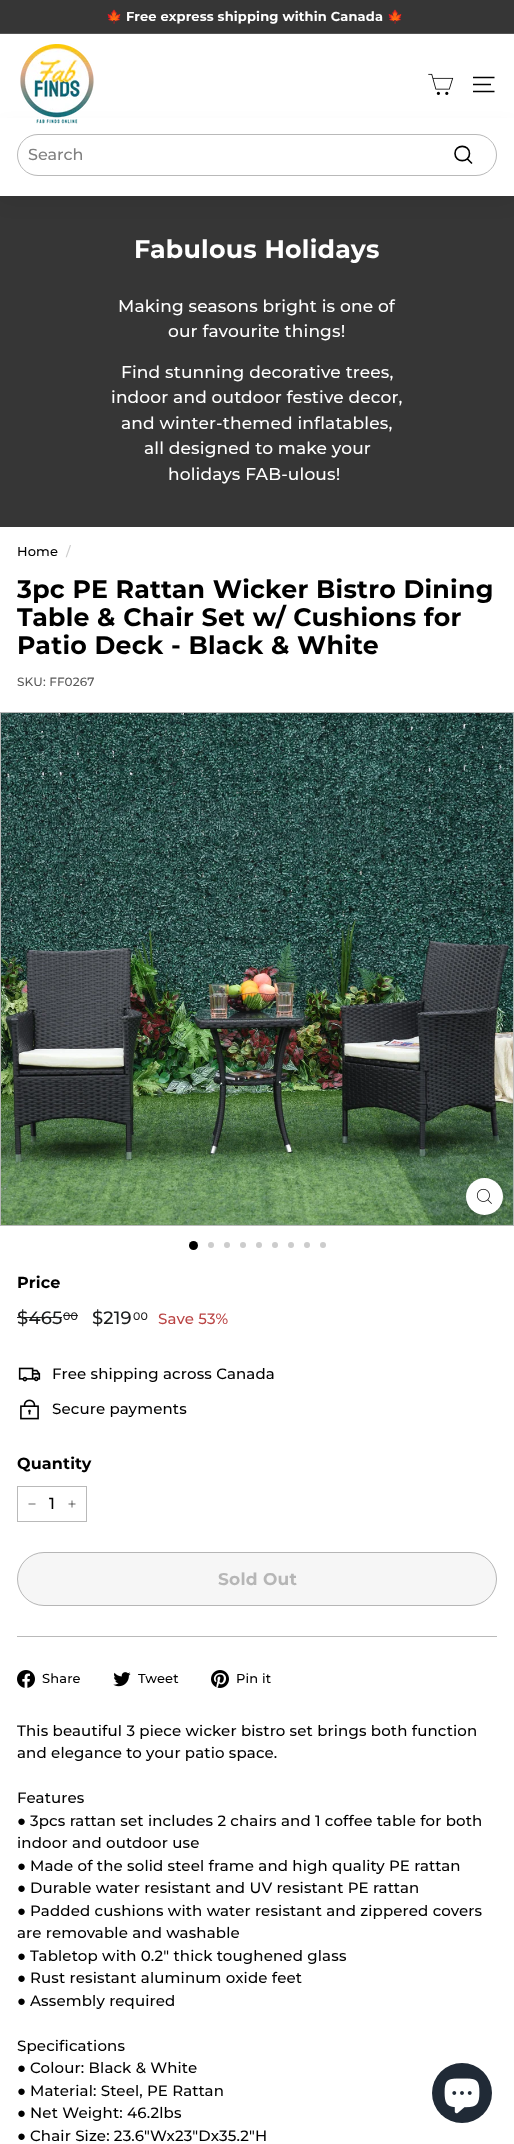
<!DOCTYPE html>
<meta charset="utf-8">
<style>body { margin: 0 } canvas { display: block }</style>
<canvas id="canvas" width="514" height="2144"></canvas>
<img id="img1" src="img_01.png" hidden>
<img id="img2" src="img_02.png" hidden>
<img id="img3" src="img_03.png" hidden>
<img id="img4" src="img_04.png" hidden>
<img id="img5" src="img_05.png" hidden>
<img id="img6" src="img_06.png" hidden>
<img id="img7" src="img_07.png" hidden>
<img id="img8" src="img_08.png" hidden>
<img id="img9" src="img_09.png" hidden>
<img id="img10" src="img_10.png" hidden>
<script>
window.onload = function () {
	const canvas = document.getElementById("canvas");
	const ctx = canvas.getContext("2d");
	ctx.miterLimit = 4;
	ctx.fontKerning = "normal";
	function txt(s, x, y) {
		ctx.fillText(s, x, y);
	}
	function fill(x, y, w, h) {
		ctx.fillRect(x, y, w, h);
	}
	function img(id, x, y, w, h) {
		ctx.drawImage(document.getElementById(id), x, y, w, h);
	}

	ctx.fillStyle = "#FFFFFF";
	fill(0, 0, 514, 2144);
	ctx.fillStyle = "#363636";
	fill(0, 0, 514, 33);
	ctx.fillStyle = "#545454";
	fill(0, 33, 514, 1);
	ctx.fillStyle = "#363636";
	fill(0, 196, 514, 331);
	ctx.fillStyle = "rgba(0, 0, 0, 0.1)";
	ctx.filter = "blur(12.5px)";
	ctx.beginPath();
	ctx.rect(0, 134, 514, 62);
	ctx.fill();
	ctx.filter = "none";
	ctx.fillStyle = "#FFFFFF";
	fill(0, 118, 514, 78);
	img("img1", 20, 44, 74, 80);
	img("img2", 428, 73, 26, 22);
	ctx.beginPath();
	ctx.moveTo(473, 77.5);
	ctx.lineTo(494.5, 77.5);
	ctx.moveTo(473, 84.5);
	ctx.lineTo(491, 84.5);
	ctx.moveTo(473, 91.5);
	ctx.lineTo(494.5, 91.5);
	ctx.strokeStyle = "#000000";
	ctx.lineWidth = 1.7;
	ctx.stroke();
	ctx.beginPath();
	ctx.roundRect(17.5, 134.5, 479, 41, 20.5);
	ctx.strokeStyle = "#B9B9B9";
	ctx.lineWidth = 1;
	ctx.stroke();
	ctx.beginPath();
	ctx.moveTo(469.5, 153.5);
	ctx.bezierCurveTo(469.5, 163, 455, 163, 455, 153.5);
	ctx.bezierCurveTo(455, 144, 469.5, 144, 469.5, 153.5);
	ctx.closePath();
	ctx.moveTo(472, 163.5);
	ctx.lineTo(467.5, 159);
	ctx.strokeStyle = "#000000";
	ctx.lineWidth = 1.6;
	ctx.stroke();
	ctx.strokeStyle = "#B9B9B9";
	ctx.lineWidth = 1;
	ctx.strokeRect(0.5, 712.5, 513, 513);
	img("img3", 1, 713, 512, 512);
	ctx.fillStyle = "rgba(0, 0, 0, 0.15)";
	ctx.filter = "blur(3px)";
	ctx.beginPath();
	ctx.roundRect(466, 1181, 37, 37, 18.5);
	ctx.fill();
	ctx.filter = "none";
	ctx.fillStyle = "#FFFFFF";
	ctx.beginPath();
	ctx.arc(484.5, 1196.5, 18.5, 0, Math.PI * 2);
	ctx.fill();
	img("img4", 476, 1188, 16, 16);
	ctx.fillStyle = "#000000";
	ctx.beginPath();
	ctx.arc(193.5, 1245.5, 4.5, 0, Math.PI * 2);
	ctx.fill();
	ctx.fillStyle = "#CCCCCC";
	ctx.beginPath();
	ctx.arc(211, 1245, 3, 0, Math.PI * 2);
	ctx.fill();
	ctx.beginPath();
	ctx.arc(227, 1245, 3, 0, Math.PI * 2);
	ctx.fill();
	ctx.beginPath();
	ctx.arc(243, 1245, 3, 0, Math.PI * 2);
	ctx.fill();
	ctx.beginPath();
	ctx.arc(259, 1245, 3, 0, Math.PI * 2);
	ctx.fill();
	ctx.beginPath();
	ctx.arc(275, 1245, 3, 0, Math.PI * 2);
	ctx.fill();
	ctx.beginPath();
	ctx.arc(291, 1245, 3, 0, Math.PI * 2);
	ctx.fill();
	ctx.beginPath();
	ctx.arc(307, 1245, 3, 0, Math.PI * 2);
	ctx.fill();
	ctx.beginPath();
	ctx.arc(323, 1245, 3, 0, Math.PI * 2);
	ctx.fill();
	ctx.fillStyle = "#1C1D1D";
	fill(17, 1317, 45, 1);
	fill(63, 1315, 15, 1);
	img("img5", 18, 1367, 23, 15);
	img("img6", 20, 1399, 19, 21);
	ctx.strokeRect(17.5, 1486.5, 69, 35);
	ctx.beginPath();
	ctx.moveTo(35.5, 1504);
	ctx.lineTo(28.5, 1504);
	ctx.moveTo(72, 1500.5);
	ctx.lineTo(72, 1507.5);
	ctx.moveTo(75.5, 1504);
	ctx.lineTo(68.5, 1504);
	ctx.strokeStyle = "#000000";
	ctx.lineWidth = 0.6;
	ctx.stroke();
	ctx.fillStyle = "#F6F6F6";
	ctx.beginPath();
	ctx.roundRect(17.5, 1552.5, 479, 53, 26.5);
	ctx.fill();
	ctx.strokeStyle = "#B6B6B6";
	ctx.lineWidth = 1;
	ctx.stroke();
	ctx.fillStyle = "#B9B9B9";
	fill(17, 1636, 480, 1);
	img("img7", 17, 1670, 18, 18);
	img("img8", 113, 1672, 18, 15);
	img("img9", 211, 1670, 18, 18);
	ctx.fillStyle = "#202A36";
	ctx.beginPath();
	ctx.arc(462, 2093, 30, 0, Math.PI * 2);
	ctx.fill();
	img("img10", 444, 2078, 36, 36);
	ctx.letterSpacing = "0.15px";
	ctx.font = "bold 13px Noto Color Emoji";
	ctx.fillStyle = "#FFFFFF";
	txt("🍁", 106, 21);
	ctx.font = "bold 13px Montserrat";
	txt("Free express shipping within Canada", 126, 21);
	ctx.font = "bold 13px Noto Color Emoji";
	txt("🍁", 387, 21);
	ctx.letterSpacing = "0px";
	ctx.font = "500 16px Montserrat";
	ctx.fillStyle = "#808080";
	txt("Search", 28, 160);
	ctx.letterSpacing = "0.25px";
	ctx.font = "bold 25.25px Montserrat";
	ctx.fillStyle = "#FFFFFF";
	txt("Fabulous Holidays", 134, 258);
	ctx.letterSpacing = "0.15px";
	ctx.font = "500 17px Montserrat";
	txt("Making seasons bright is one of", 118, 312);
	txt("our favourite things!", 168, 337);
	txt("Find stunning decorative trees,", 121, 378);
	txt("indoor and outdoor festive decor,", 111, 403);
	txt("and winter-themed inflatables,", 121, 429);
	txt("all designed to make your", 144, 454);
	txt("holidays FAB-ulous!", 168, 480);
	ctx.font = "500 13px Montserrat";
	ctx.fillStyle = "#000000";
	txt("Home", 17, 556);
	ctx.fillStyle = "#CCCCCC";
	txt("/", 66, 556);
	ctx.letterSpacing = "0.25px";
	ctx.font = "bold 25.25px Montserrat";
	ctx.fillStyle = "#000000";
	txt("3pc PE Rattan Wicker Bistro Dining", 17, 598);
	txt("Table & Chair Set w/ Cushions for", 17, 626);
	txt("Patio Deck - Black & White", 17, 654);
	ctx.letterSpacing = "0.15px";
	ctx.font = "500 12px Montserrat";
	ctx.fillStyle = "#595959";
	txt("SKU: FF0267", 17, 686);
	ctx.font = "bold 16px Montserrat";
	ctx.fillStyle = "#000000";
	txt("Price", 17, 1288);
	ctx.font = "500 18px Montserrat";
	ctx.fillStyle = "#1C1D1D";
	txt("$465", 17, 1324);
	ctx.font = "500 11px Montserrat";
	txt("00", 63, 1320);
	ctx.font = "500 18px Montserrat";
	txt("$219", 92, 1324);
	ctx.font = "500 11px Montserrat";
	txt("00", 133, 1320);
	ctx.font = "500 15px Montserrat";
	ctx.fillStyle = "#BA4444";
	txt("Save 53%", 158, 1324);
	ctx.fillStyle = "#000000";
	txt("Free shipping across Canada", 52, 1379);
	txt("Secure payments", 52, 1414);
	ctx.font = "bold 16px Montserrat";
	txt("Quantity", 17, 1469);
	ctx.letterSpacing = "0px";
	ctx.font = "500 16px Montserrat";
	txt("1", 49, 1509);
	ctx.letterSpacing = "0.25px";
	ctx.font = "bold 17px Montserrat";
	ctx.fillStyle = "#B6B6B6";
	txt("Sold Out", 218, 1585);
	ctx.letterSpacing = "0.15px";
	ctx.font = "500 13px Montserrat";
	ctx.fillStyle = "#000000";
	txt("Share", 42, 1683);
	txt("Tweet", 138, 1683);
	txt("Pin it", 236, 1683);
	ctx.font = "500 15px Montserrat";
	txt("This beautiful 3 piece wicker bistro set brings both function", 17, 1736);
	txt("and elegance to your patio space.", 17, 1758);
	txt("Features", 17, 1803);
	ctx.font = "15px Liberation Sans";
	txt("●", 17, 1826);
	ctx.font = "500 15px Montserrat";
	txt("3pcs rattan set includes 2 chairs and 1 coffee table for both", 30, 1826);
	txt("indoor and outdoor use", 17, 1848);
	ctx.font = "15px Liberation Sans";
	txt("●", 17, 1871);
	ctx.font = "500 15px Montserrat";
	txt("Made of the solid steel frame and high quality PE rattan", 30, 1871);
	ctx.font = "15px Liberation Sans";
	txt("●", 17, 1893);
	ctx.font = "500 15px Montserrat";
	txt("Durable water resistant and UV resistant PE rattan", 30, 1893);
	ctx.font = "15px Liberation Sans";
	txt("●", 17, 1916);
	ctx.font = "500 15px Montserrat";
	txt("Padded cushions with water resistant and zippered covers", 30, 1916);
	txt("are removable and washable", 17, 1938);
	ctx.font = "15px Liberation Sans";
	txt("●", 17, 1961);
	ctx.font = "500 15px Montserrat";
	txt("Tabletop with 0.2\" thick toughened glass", 30, 1961);
	ctx.font = "15px Liberation Sans";
	txt("●", 17, 1983);
	ctx.font = "500 15px Montserrat";
	txt("Rust resistant aluminum oxide feet", 30, 1983);
	ctx.font = "15px Liberation Sans";
	txt("●", 17, 2006);
	ctx.font = "500 15px Montserrat";
	txt("Assembly required", 30, 2006);
	txt("Specifications", 17, 2051);
	ctx.font = "15px Liberation Sans";
	txt("●", 17, 2073);
	ctx.font = "500 15px Montserrat";
	txt("Colour: Black & White", 30, 2073);
	ctx.font = "15px Liberation Sans";
	txt("●", 17, 2096);
	ctx.font = "500 15px Montserrat";
	txt("Material: Steel, PE Rattan", 30, 2096);
	ctx.font = "15px Liberation Sans";
	txt("●", 17, 2118);
	ctx.font = "500 15px Montserrat";
	txt("Net Weight: 46.2lbs", 30, 2118);
	ctx.font = "15px Liberation Sans";
	txt("●", 17, 2141);
	ctx.font = "500 15px Montserrat";
	txt("Chair Size: 23.6\"Wx23\"Dx35.2\"H", 30, 2141);
};
</script>
